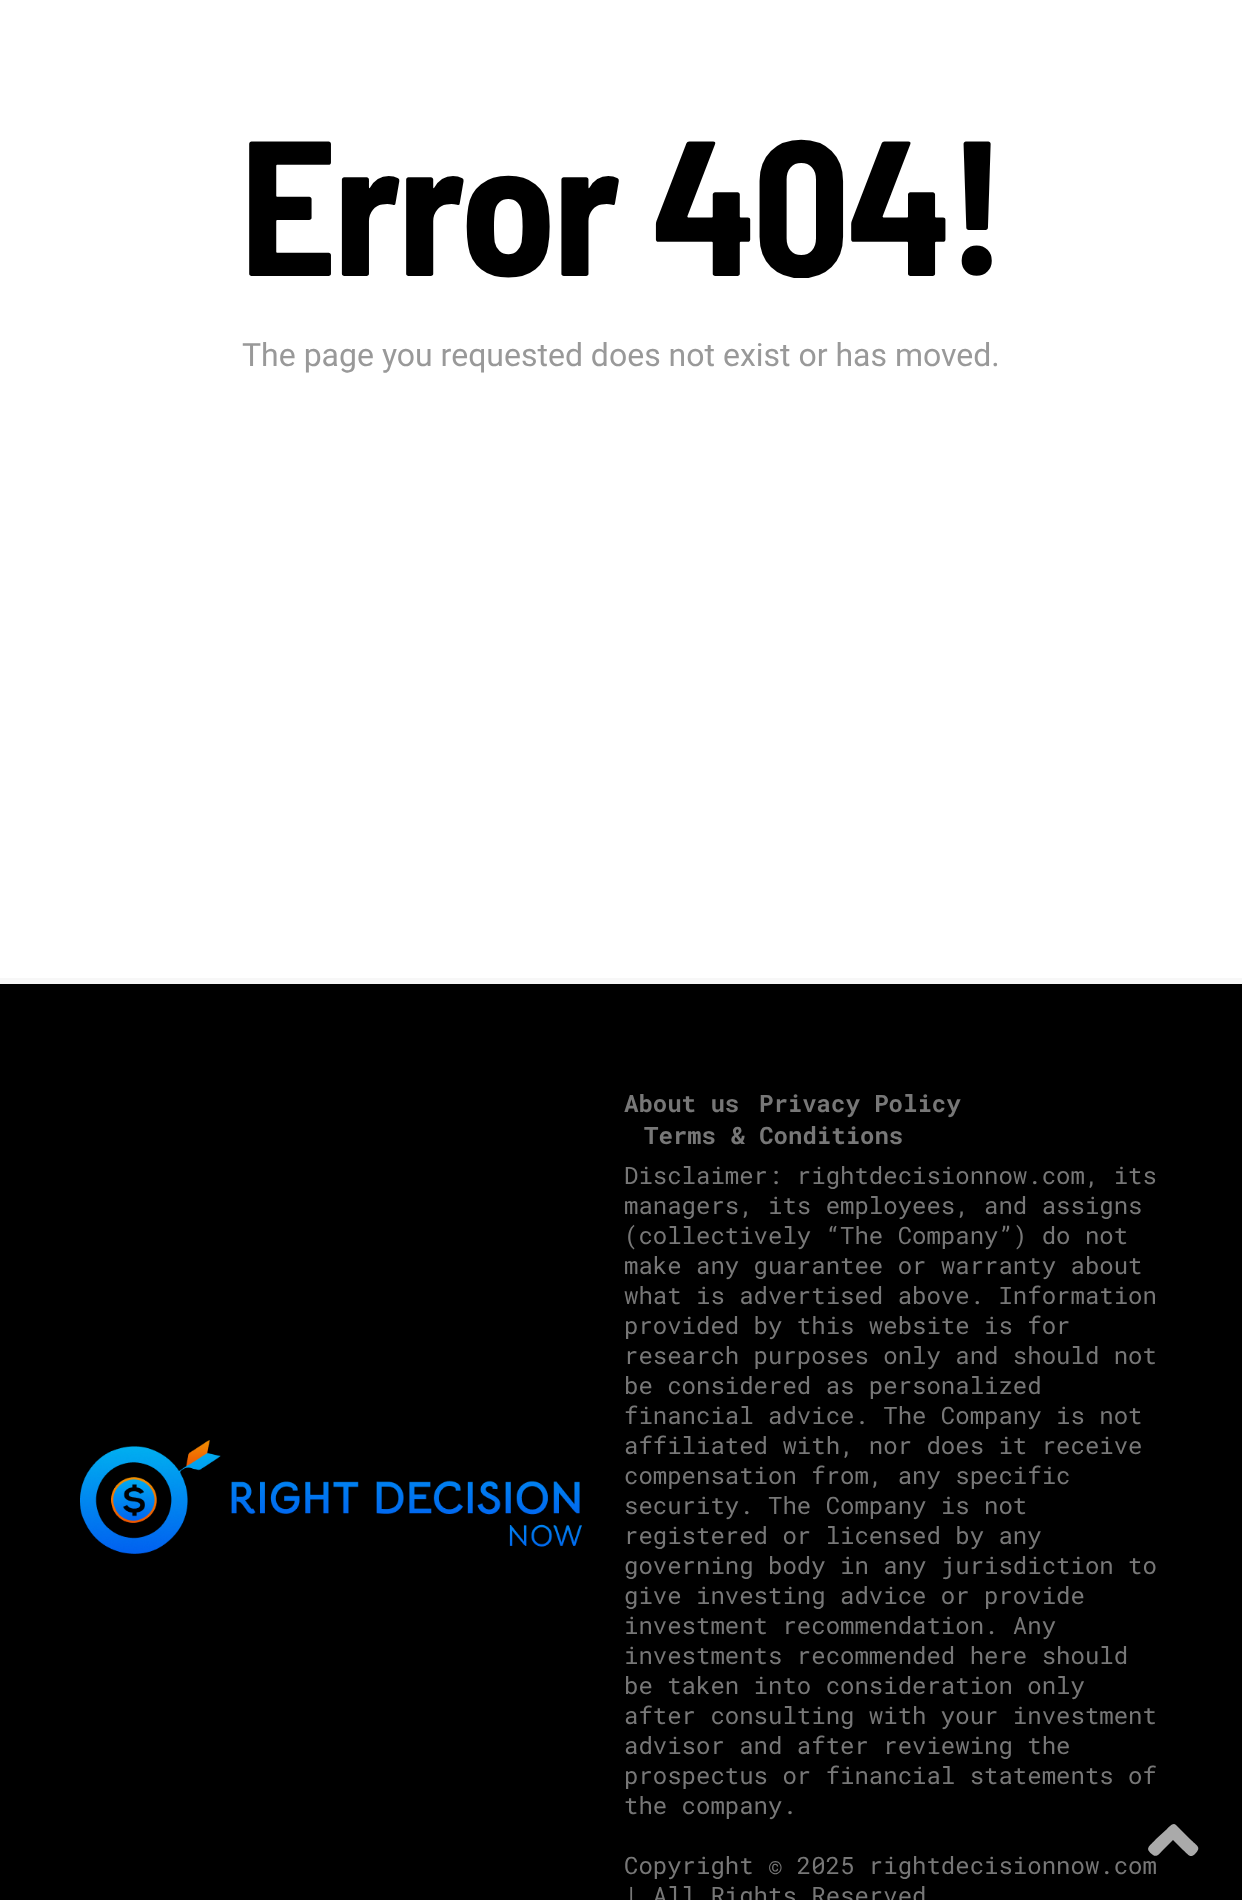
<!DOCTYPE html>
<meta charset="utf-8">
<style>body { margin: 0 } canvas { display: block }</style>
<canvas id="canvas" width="1242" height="1900"></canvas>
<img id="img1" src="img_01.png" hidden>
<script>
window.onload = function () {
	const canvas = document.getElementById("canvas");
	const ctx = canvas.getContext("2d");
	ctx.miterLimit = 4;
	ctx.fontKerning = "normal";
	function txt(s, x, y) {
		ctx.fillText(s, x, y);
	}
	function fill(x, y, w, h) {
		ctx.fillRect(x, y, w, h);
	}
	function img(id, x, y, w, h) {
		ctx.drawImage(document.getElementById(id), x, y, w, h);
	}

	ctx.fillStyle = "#FFFFFF";
	fill(0, 0, 1242, 1900);
	ctx.fillStyle = "#000000";
	fill(0, 984, 1242, 916);
	ctx.fillStyle = "#F7F7F7";
	fill(0, 978, 1242, 6);
	img("img1", 80, 1440, 502, 114);
	ctx.letterSpacing = "-3.75px";
	ctx.font = "bold 192px Barlow Semi Condensed";
	ctx.fillStyle = "#000000";
	txt("Error 404!", 239, 276);
	ctx.letterSpacing = "0px";
	ctx.font = "32px Roboto";
	ctx.fillStyle = "#999999";
	txt("The page you requested does not exist or has moved.", 242, 366);
	ctx.font = "bold 24px Roboto Mono";
	ctx.fillStyle = "#777777";
	txt("About us", 624, 1112);
	txt("Privacy Policy", 759, 1112);
	txt("Terms & Conditions", 644, 1144);
	ctx.font = "24px Roboto Mono";
	txt("Disclaimer: rightdecisionnow.com, its", 624, 1184);
	txt("managers, its employees, and assigns", 624, 1214);
	txt("(collectively “The Company”) do not", 624, 1244);
	txt("make any guarantee or warranty about", 624, 1274);
	txt("what is advertised above. Information", 624, 1304);
	txt("provided by this website is for", 624, 1334);
	txt("research purposes only and should not", 624, 1364);
	txt("be considered as personalized", 624, 1394);
	txt("financial advice. The Company is not", 624, 1424);
	txt("affiliated with, nor does it receive", 624, 1454);
	txt("compensation from, any specific", 624, 1484);
	txt("security. The Company is not", 624, 1514);
	txt("registered or licensed by any", 624, 1544);
	txt("governing body in any jurisdiction to", 624, 1574);
	txt("give investing advice or provide", 624, 1604);
	txt("investment recommendation. Any", 624, 1634);
	txt("investments recommended here should", 624, 1664);
	txt("be taken into consideration only", 624, 1694);
	txt("after consulting with your investment", 624, 1724);
	txt("advisor and after reviewing the", 624, 1754);
	txt("prospectus or financial statements of", 624, 1784);
	txt("the company.", 624, 1814);
	txt("Copyright © 2025 rightdecisionnow.com", 624, 1874);
	txt("| All Rights Reserved", 624, 1904);
	ctx.fillStyle = "#AAAAAA";
	ctx.beginPath();
	ctx.moveTo(1176, 1825);
	ctx.lineTo(1190, 1839);
	ctx.bezierCurveTo(1197, 1846, 1202, 1847, 1195, 1854);
	ctx.bezierCurveTo(1190, 1859, 1188, 1854, 1183, 1850);
	ctx.lineTo(1173, 1840);
	ctx.lineTo(1163, 1850);
	ctx.bezierCurveTo(1161, 1852, 1157, 1858, 1153, 1855);
	ctx.bezierCurveTo(1144, 1848, 1149, 1847, 1156, 1839);
	ctx.lineTo(1167, 1829);
	ctx.bezierCurveTo(1169, 1827, 1173, 1822, 1176, 1825);
	ctx.closePath();
	ctx.fill();
};
</script>
